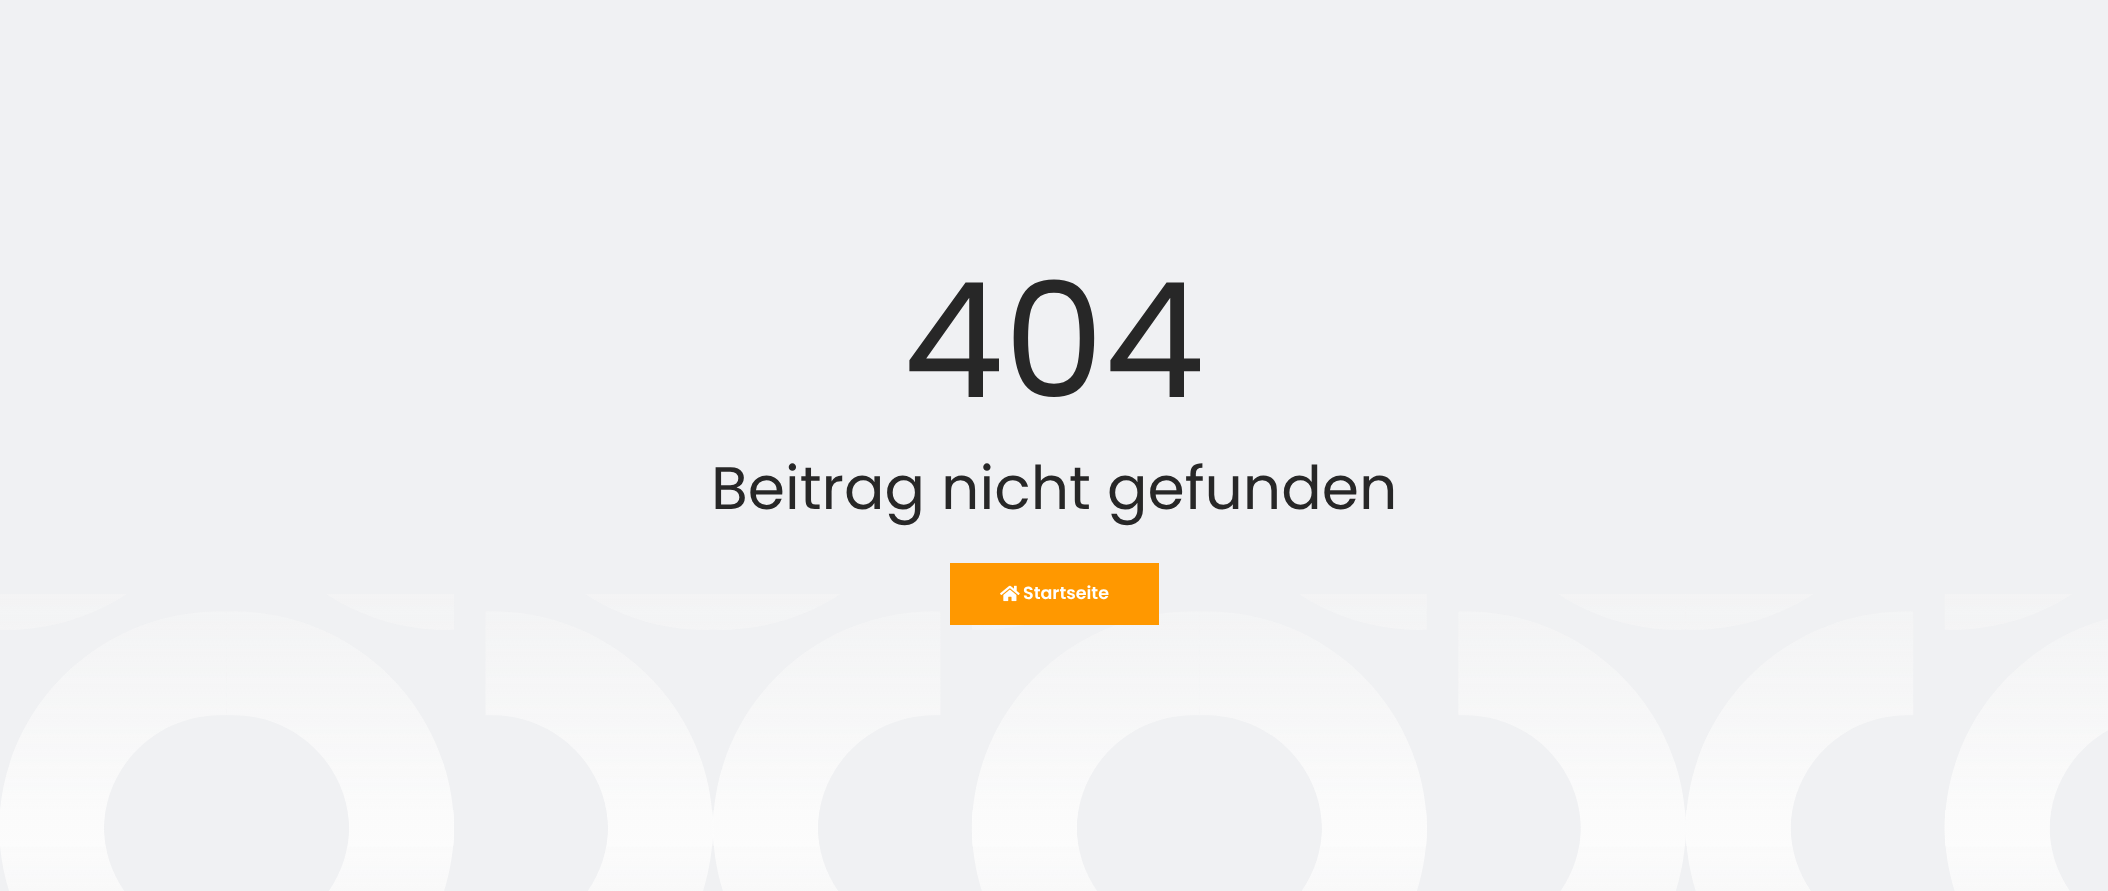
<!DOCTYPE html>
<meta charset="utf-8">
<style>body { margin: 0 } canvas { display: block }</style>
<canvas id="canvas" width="2108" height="891"></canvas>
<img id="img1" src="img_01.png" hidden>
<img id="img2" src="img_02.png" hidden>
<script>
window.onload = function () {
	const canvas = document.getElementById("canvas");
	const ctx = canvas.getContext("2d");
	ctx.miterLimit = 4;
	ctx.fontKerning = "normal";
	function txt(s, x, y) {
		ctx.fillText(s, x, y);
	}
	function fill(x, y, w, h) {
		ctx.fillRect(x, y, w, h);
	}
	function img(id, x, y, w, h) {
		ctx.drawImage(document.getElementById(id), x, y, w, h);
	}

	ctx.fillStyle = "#F0F1F3";
	fill(0, 0, 2108, 891);
	img("img1", 0, 594, 2108, 297);
	ctx.fillStyle = "#FF9800";
	fill(950, 563, 209, 62);
	img("img2", 1000, 585, 20, 17);
	ctx.font = "160px Poppins";
	ctx.fillStyle = "#272727";
	txt("404", 903, 397);
	ctx.font = "60px Poppins";
	txt("Beitrag nicht gefunden", 711, 509);
	ctx.font = "600 17.5px Poppins";
	ctx.fillStyle = "#FFFFFF";
	txt("Startseite", 1023, 599);
};
</script>
